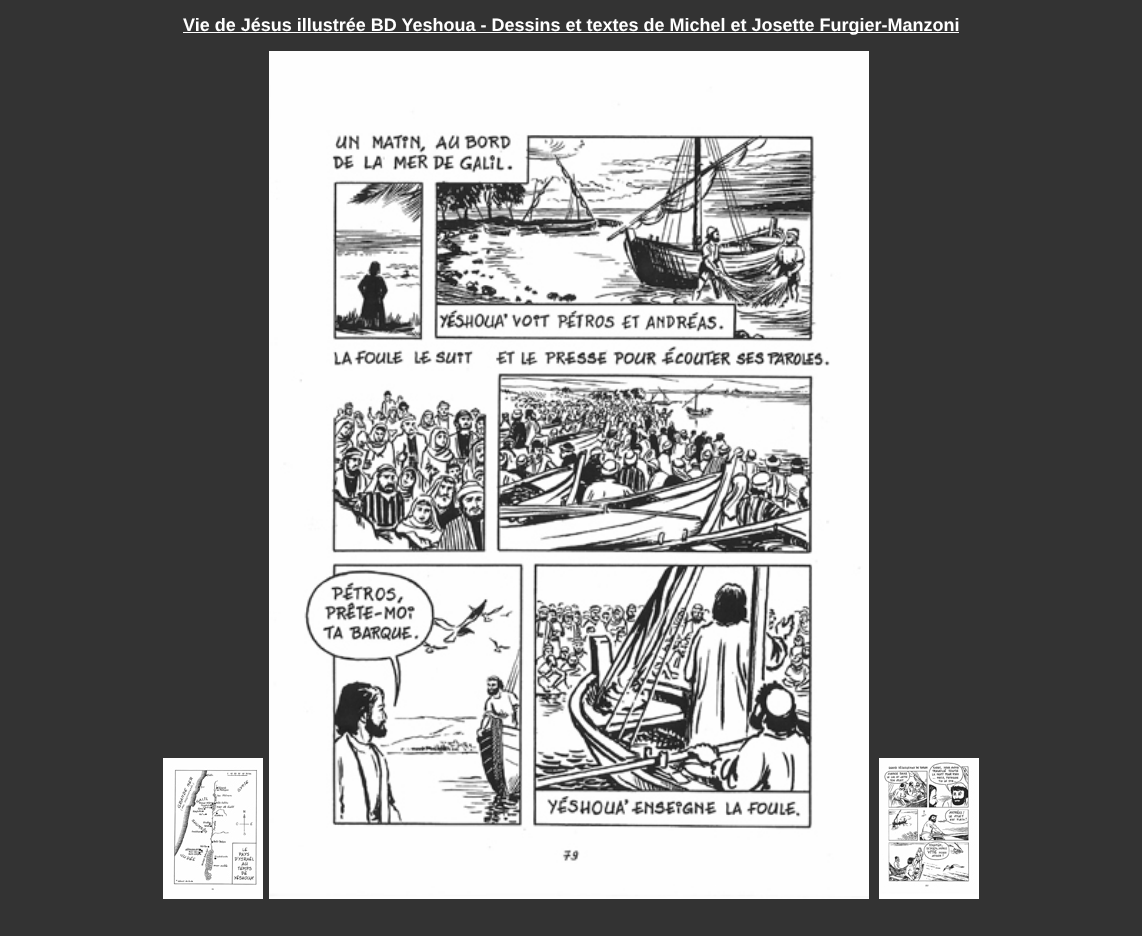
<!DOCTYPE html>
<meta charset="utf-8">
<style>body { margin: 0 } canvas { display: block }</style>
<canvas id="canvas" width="1142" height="936"></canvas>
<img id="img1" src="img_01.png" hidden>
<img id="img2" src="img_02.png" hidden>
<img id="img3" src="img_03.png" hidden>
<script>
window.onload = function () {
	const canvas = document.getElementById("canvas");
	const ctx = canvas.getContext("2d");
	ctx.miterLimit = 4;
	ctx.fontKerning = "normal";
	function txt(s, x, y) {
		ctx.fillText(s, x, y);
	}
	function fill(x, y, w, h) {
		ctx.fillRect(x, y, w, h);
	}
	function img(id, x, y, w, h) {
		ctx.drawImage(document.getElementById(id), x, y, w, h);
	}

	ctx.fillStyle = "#333333";
	fill(0, 0, 1142, 936);
	ctx.fillStyle = "#FFFFFF";
	fill(183, 32, 776, 1);
	img("img1", 163, 758, 100, 141);
	img("img2", 269, 51, 600, 848);
	img("img3", 879, 758, 100, 141);
	ctx.font = "bold 18px Liberation Sans";
	txt("Vie de Jésus illustrée BD Yeshoua - Dessins et textes de Michel et Josette Furgier-Manzoni", 183, 31);
};
</script>
